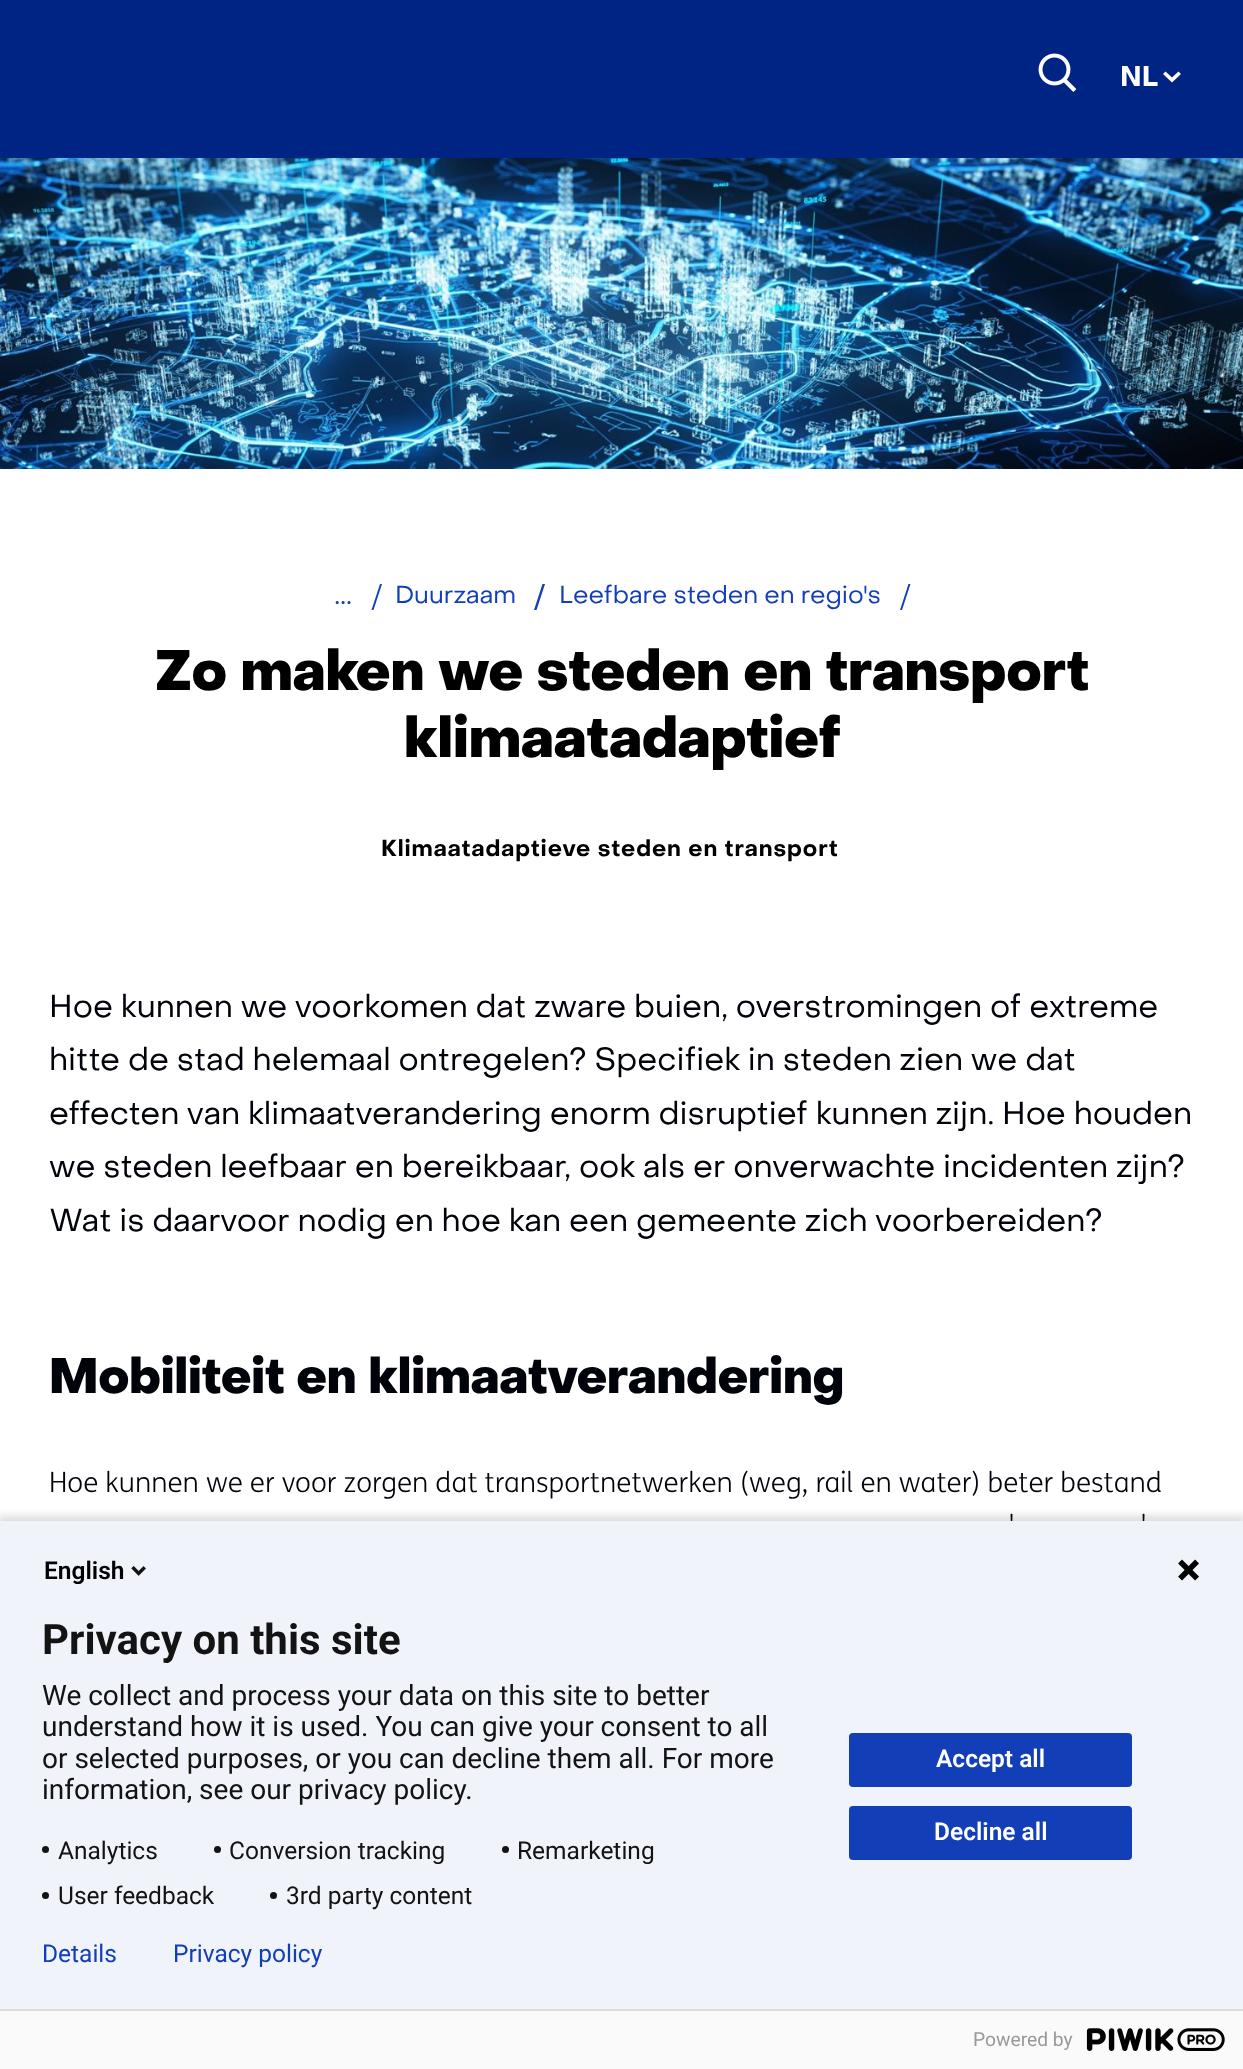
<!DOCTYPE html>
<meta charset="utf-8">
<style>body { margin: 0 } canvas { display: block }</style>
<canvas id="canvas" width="1243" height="2069"></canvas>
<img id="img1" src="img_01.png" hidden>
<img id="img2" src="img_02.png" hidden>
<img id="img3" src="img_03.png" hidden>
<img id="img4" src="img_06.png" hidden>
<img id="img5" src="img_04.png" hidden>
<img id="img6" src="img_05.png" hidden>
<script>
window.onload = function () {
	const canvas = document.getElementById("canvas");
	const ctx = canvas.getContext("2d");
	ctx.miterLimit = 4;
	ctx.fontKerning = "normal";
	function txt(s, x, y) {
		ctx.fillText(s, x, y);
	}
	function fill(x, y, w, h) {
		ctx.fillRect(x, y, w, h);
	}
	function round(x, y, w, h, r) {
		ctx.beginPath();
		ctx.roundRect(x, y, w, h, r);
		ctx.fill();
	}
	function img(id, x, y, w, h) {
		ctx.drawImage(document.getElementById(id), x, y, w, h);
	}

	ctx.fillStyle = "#FFFFFF";
	fill(0, 0, 1243, 2069);
	ctx.fillStyle = "#002484";
	fill(0, 0, 1243, 158);
	img("img1", 1038, 53, 39, 39);
	ctx.fillStyle = "#FFFFFF";
	ctx.beginPath();
	ctx.moveTo(1181, 74);
	ctx.lineTo(1178.5, 71.5);
	ctx.lineTo(1172, 77.5);
	ctx.lineTo(1165.5, 71.5);
	ctx.lineTo(1163, 74);
	ctx.lineTo(1172, 82.5);
	ctx.closePath();
	ctx.fill("evenodd");
	img("img2", 0, 158, 1243, 311);
	img("img3", 335, 601, 16, 4);
	ctx.fillStyle = "#123EB7";
	ctx.beginPath();
	ctx.moveTo(371.5, 610);
	ctx.lineTo(373.5, 610);
	ctx.lineTo(382, 584);
	ctx.lineTo(380, 584);
	ctx.closePath();
	ctx.fill();
	ctx.beginPath();
	ctx.moveTo(534, 610);
	ctx.lineTo(536.5, 610);
	ctx.lineTo(545, 584);
	ctx.lineTo(542.5, 584);
	ctx.closePath();
	ctx.fill();
	ctx.beginPath();
	ctx.moveTo(900, 610);
	ctx.lineTo(902, 610);
	ctx.lineTo(910.5, 584);
	ctx.lineTo(908.5, 584);
	ctx.closePath();
	ctx.fill();
	ctx.fillStyle = "rgba(0, 0, 0, 0.14)";
	ctx.filter = "blur(4.5px)";
	ctx.beginPath();
	ctx.rect(-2, 1516, 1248, 553);
	ctx.fill();
	ctx.filter = "none";
	ctx.fillStyle = "#FAFAFA";
	fill(0, 2011, 1243, 58);
	ctx.fillStyle = "#DDDDDD";
	fill(0, 2009, 1243, 2);
	img("img4", 1086, 2028, 139, 23);
	ctx.font = "bold 28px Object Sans";
	ctx.fillStyle = "#FFFFFF";
	txt("NL", 1120, 86);
	ctx.font = "24.5px Object Sans";
	ctx.fillStyle = "#123EB7";
	txt("Duurzaam", 395, 603);
	txt("Leefbare steden en regio's", 559, 603);
	ctx.font = "900 56px Object Sans";
	ctx.fillStyle = "#000000";
	txt("Zo maken we steden en transport", 155, 690);
	txt("klimaatadaptief", 404, 757);
	ctx.letterSpacing = "0.9px";
	ctx.font = "bold 22.75px Object Sans";
	txt("Klimaatadaptieve steden en transport", 381, 856);
	ctx.letterSpacing = "0px";
	ctx.font = "31.5px Object Sans";
	ctx.fillStyle = "#00030A";
	txt("Hoe kunnen we voorkomen dat zware buien, overstromingen of extreme", 49, 1017);
	txt("hitte de stad helemaal ontregelen? Specifiek in steden zien we dat", 49, 1070);
	txt("effecten van klimaatverandering enorm disruptief kunnen zijn. Hoe houden", 49, 1124);
	txt("we steden leefbaar en bereikbaar, ook als er onverwachte incidenten zijn?", 49, 1177);
	txt("Wat is daarvoor nodig en hoe kan een gemeente zich voorbereiden?", 49, 1231);
	ctx.font = "900 49px Object Sans";
	txt("Mobiliteit en klimaatverandering", 49, 1393);
	ctx.font = "300 28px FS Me";
	txt("Hoe kunnen we er voor zorgen dat transportnetwerken (weg, rail en water) beter bestand", 49, 1492);
	txt("'", 1008, 1534);
	txt("'", 1140, 1534);
	ctx.fillStyle = "#F0F3FA";
	fill(0, 1521, 1243, 488);
	ctx.font = "600 24.5px Roboto";
	ctx.fillStyle = "#000000";
	txt("English", 44, 1579);
	img("img5", 131, 1566, 15, 10);
	img("img6", 1178, 1559, 21, 22);
	ctx.font = "bold 42px Roboto";
	ctx.fillStyle = "#131313";
	txt("Privacy on this site", 42, 1654);
	ctx.font = "28px Roboto";
	txt("We collect and process your data on this site to better", 42, 1705);
	txt("understand how it is used. You can give your consent to all", 42, 1736);
	txt("or selected purposes, or you can decline them all. For more", 42, 1768);
	txt("information, see our privacy policy.", 42, 1799);
	ctx.beginPath();
	ctx.arc(45.5, 1849.5, 3.5, 0, Math.PI * 2);
	ctx.fill();
	ctx.font = "24.5px Roboto";
	txt("Analytics", 58, 1859);
	ctx.beginPath();
	ctx.arc(217.5, 1849.5, 3.5, 0, Math.PI * 2);
	ctx.fill();
	txt("Conversion tracking", 229, 1859);
	ctx.beginPath();
	ctx.arc(505.5, 1849.5, 3.5, 0, Math.PI * 2);
	ctx.fill();
	txt("Remarketing", 517, 1859);
	ctx.beginPath();
	ctx.arc(45.5, 1895.5, 3.5, 0, Math.PI * 2);
	ctx.fill();
	txt("User feedback", 58, 1904);
	ctx.beginPath();
	ctx.arc(273.5, 1895.5, 3.5, 0, Math.PI * 2);
	ctx.fill();
	txt("3rd party content", 286, 1904);
	ctx.fillStyle = "#123EB7";
	round(849, 1733, 283, 54, 4);
	ctx.font = "600 24.5px Roboto";
	ctx.fillStyle = "#FFFFFF";
	txt("Accept all", 936, 1767);
	ctx.fillStyle = "#123EB7";
	round(849, 1806, 283, 54, 4);
	ctx.fillStyle = "#FFFFFF";
	txt("Decline all", 934, 1840);
	ctx.font = "24.5px Roboto";
	ctx.fillStyle = "#123EB7";
	txt("Details", 42, 1962);
	txt("Privacy policy", 173, 1962);
	ctx.font = "19.25px Roboto";
	ctx.fillStyle = "#999999";
	txt("Powered by", 973, 2046);
};
</script>
